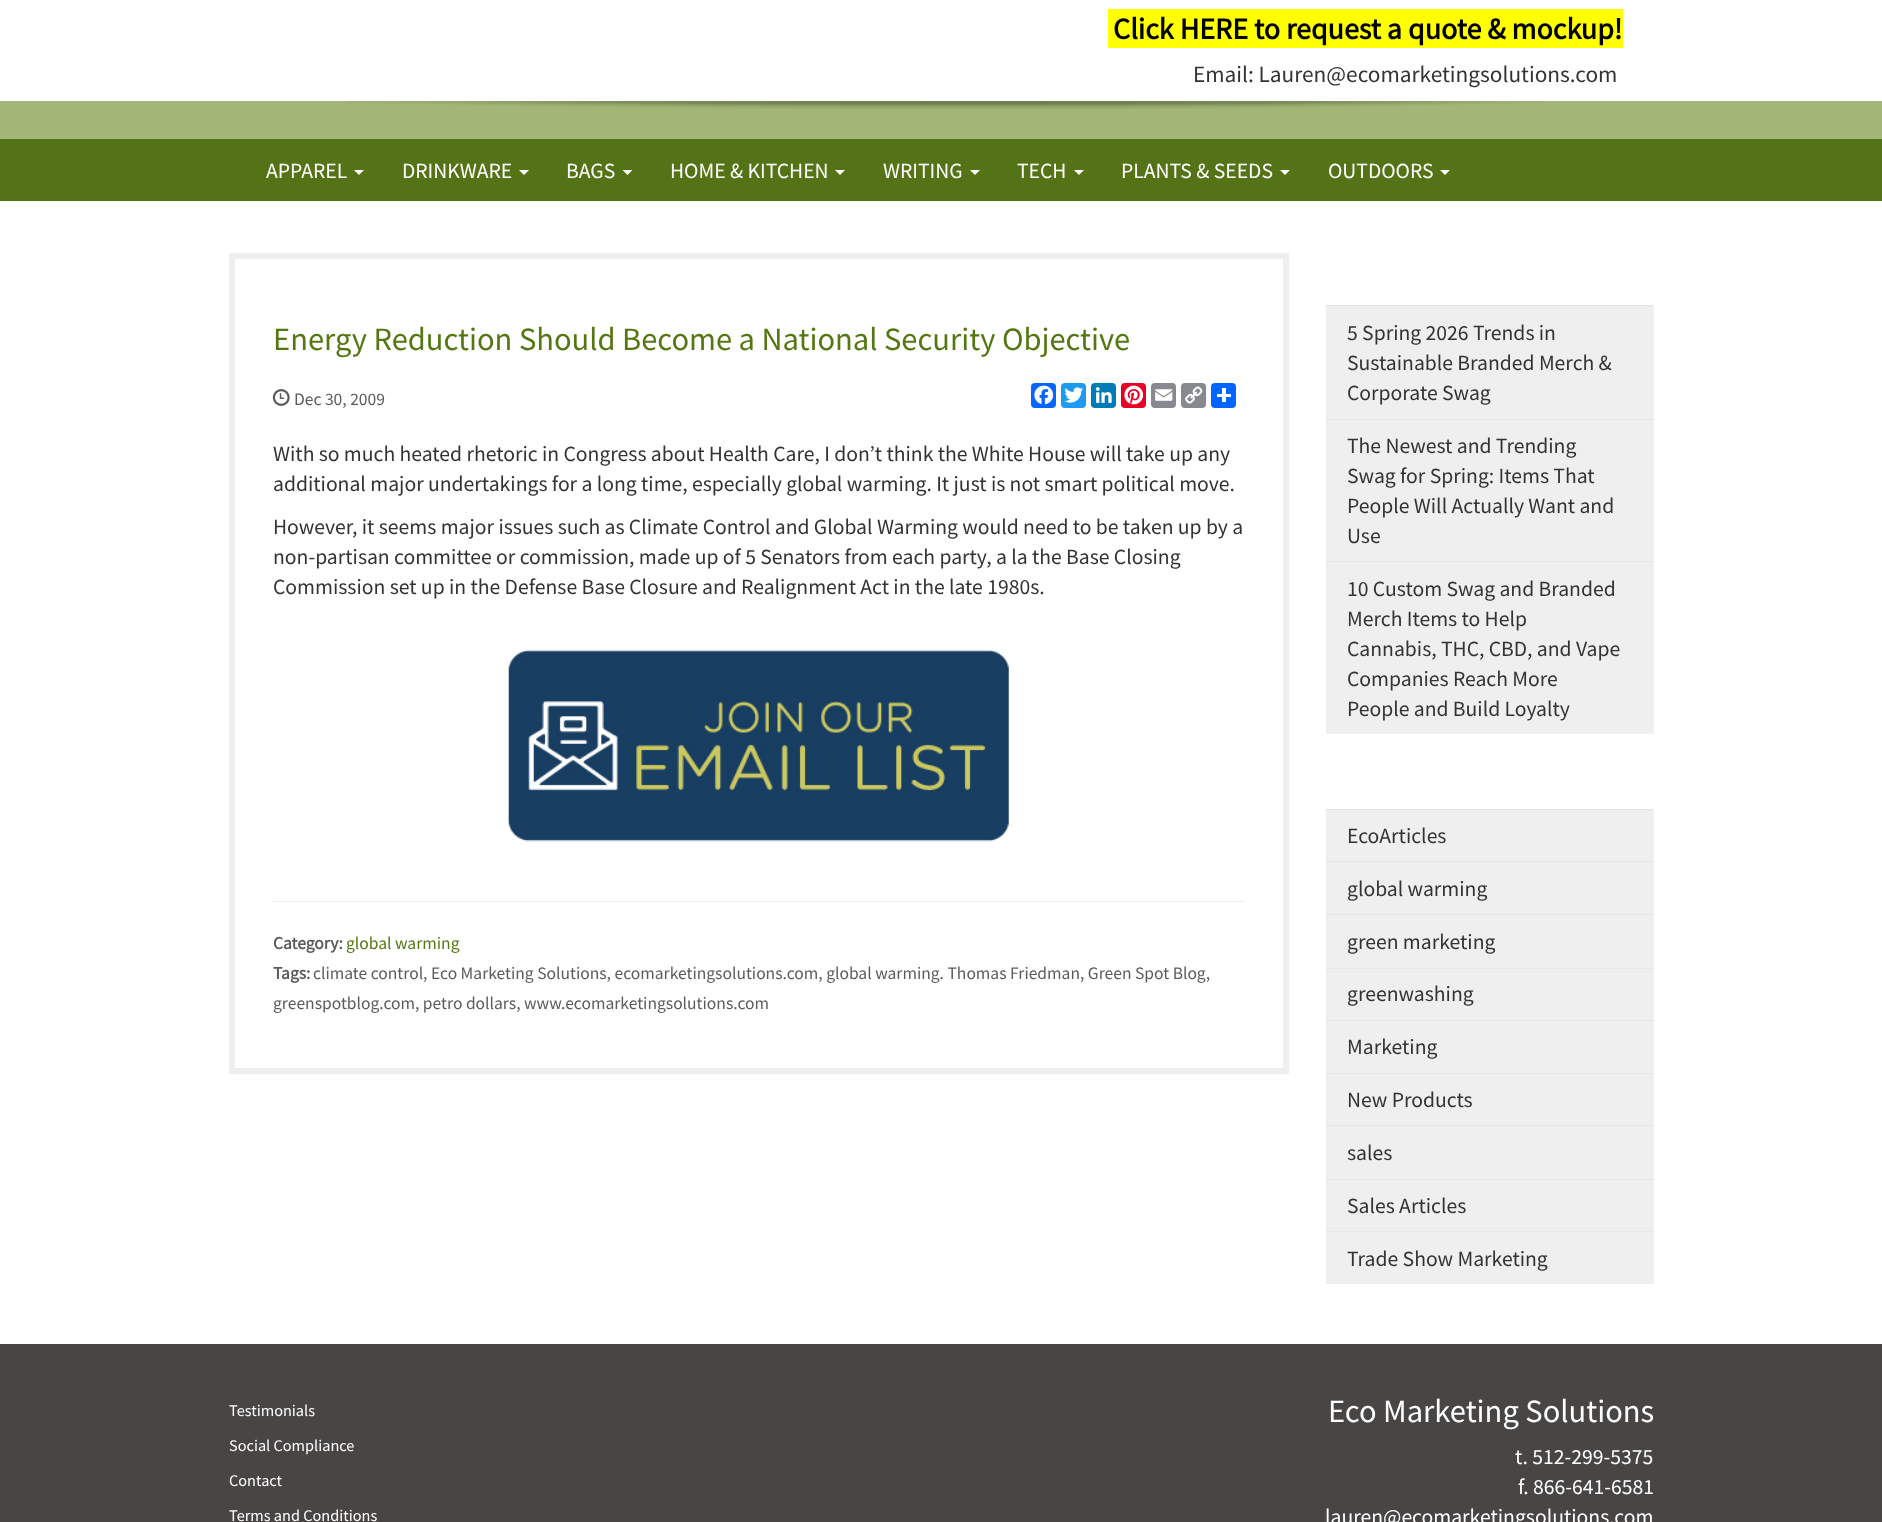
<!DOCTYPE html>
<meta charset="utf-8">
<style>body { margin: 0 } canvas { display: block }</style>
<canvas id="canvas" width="1882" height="1522"></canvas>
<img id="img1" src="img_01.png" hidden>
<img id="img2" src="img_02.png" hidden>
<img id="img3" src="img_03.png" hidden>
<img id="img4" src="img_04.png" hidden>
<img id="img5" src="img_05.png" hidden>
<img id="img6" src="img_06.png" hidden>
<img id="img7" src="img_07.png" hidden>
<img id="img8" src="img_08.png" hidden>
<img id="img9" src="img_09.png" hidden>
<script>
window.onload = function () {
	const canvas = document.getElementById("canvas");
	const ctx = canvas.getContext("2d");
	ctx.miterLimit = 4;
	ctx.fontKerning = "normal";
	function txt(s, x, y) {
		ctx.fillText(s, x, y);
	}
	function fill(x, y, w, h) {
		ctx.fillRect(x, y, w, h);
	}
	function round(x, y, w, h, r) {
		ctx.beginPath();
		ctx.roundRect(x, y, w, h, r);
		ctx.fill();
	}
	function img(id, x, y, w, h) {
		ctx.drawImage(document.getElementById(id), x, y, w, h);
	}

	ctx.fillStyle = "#A2B776";
	fill(0, 0, 1882, 1522);
	ctx.fillStyle = "#FFFFFF";
	fill(0, 0, 1882, 101);
	ctx.fillStyle = "#FFFF00";
	fill(1108, 9, 515, 39);
	img("img1", 348, 101, 1194, 8);
	ctx.fillStyle = "#547316";
	fill(0, 139, 1882, 62);
	ctx.fillStyle = "#FFFFFF";
	ctx.beginPath();
	ctx.moveTo(354, 170);
	ctx.lineTo(364, 170);
	ctx.lineTo(359, 175);
	ctx.closePath();
	ctx.fill();
	ctx.beginPath();
	ctx.moveTo(519, 170);
	ctx.lineTo(529, 170);
	ctx.lineTo(524, 175);
	ctx.closePath();
	ctx.fill();
	ctx.beginPath();
	ctx.moveTo(622.5, 170);
	ctx.lineTo(632.5, 170);
	ctx.lineTo(627.5, 175);
	ctx.closePath();
	ctx.fill();
	ctx.beginPath();
	ctx.moveTo(835, 170);
	ctx.lineTo(845, 170);
	ctx.lineTo(840, 175);
	ctx.closePath();
	ctx.fill();
	ctx.beginPath();
	ctx.moveTo(970, 170);
	ctx.lineTo(980, 170);
	ctx.lineTo(975, 175);
	ctx.closePath();
	ctx.fill();
	ctx.beginPath();
	ctx.moveTo(1074, 170);
	ctx.lineTo(1084, 170);
	ctx.lineTo(1079, 175);
	ctx.closePath();
	ctx.fill();
	ctx.beginPath();
	ctx.moveTo(1280, 170);
	ctx.lineTo(1290, 170);
	ctx.lineTo(1285, 175);
	ctx.closePath();
	ctx.fill();
	ctx.beginPath();
	ctx.moveTo(1440, 170);
	ctx.lineTo(1450, 170);
	ctx.lineTo(1445, 175);
	ctx.closePath();
	ctx.fill();
	fill(0, 201, 1882, 1143);
	ctx.strokeStyle = "#EFEFEF";
	ctx.lineWidth = 6;
	ctx.strokeRect(232, 256, 1054, 815);
	img("img2", 272, 389, 18, 17);
	ctx.fillStyle = "#0866FF";
	round(1031, 383, 25, 25, 4);
	img("img3", 1034, 385, 20, 20);
	ctx.fillStyle = "#1D9BF0";
	round(1061, 383, 25, 25, 4);
	img("img4", 1064, 387, 19, 16);
	ctx.fillStyle = "#007BB5";
	round(1091, 383, 25, 25, 4);
	img("img5", 1095, 387, 17, 16);
	ctx.fillStyle = "#E60023";
	round(1121, 383, 25, 25, 4);
	img("img6", 1124, 385, 20, 20);
	ctx.fillStyle = "#888990";
	round(1151, 383, 25, 25, 4);
	img("img7", 1155, 389, 18, 12);
	round(1181, 383, 25, 25, 4);
	img("img8", 1185, 386, 18, 18);
	ctx.fillStyle = "#0166FF";
	round(1211, 383, 25, 25, 4);
	ctx.fillStyle = "#FFFFFF";
	fill(1222, 388, 4, 14);
	fill(1217, 394, 14, 3);
	img("img9", 507, 649, 502, 193);
	ctx.fillStyle = "#EEEEEE";
	fill(273, 901, 972, 1);
	ctx.fillStyle = "#EFEFEF";
	fill(1326, 306, 328, 113);
	ctx.fillStyle = "#E5E5E5";
	fill(1326, 305, 328, 1);
	ctx.fillStyle = "#EFEFEF";
	fill(1326, 420, 328, 141);
	ctx.fillStyle = "#E5E5E5";
	fill(1326, 419, 328, 1);
	ctx.fillStyle = "#EFEFEF";
	fill(1326, 562, 328, 172);
	ctx.fillStyle = "#E5E5E5";
	fill(1326, 561, 328, 1);
	ctx.fillStyle = "#EFEFEF";
	fill(1326, 810, 328, 51);
	ctx.fillStyle = "#E5E5E5";
	fill(1326, 809, 328, 1);
	ctx.fillStyle = "#EFEFEF";
	fill(1326, 862, 328, 52);
	ctx.fillStyle = "#E5E5E5";
	fill(1326, 861, 328, 1);
	ctx.fillStyle = "#EFEFEF";
	fill(1326, 915, 328, 53);
	ctx.fillStyle = "#E5E5E5";
	fill(1326, 914, 328, 1);
	ctx.fillStyle = "#EFEFEF";
	fill(1326, 969, 328, 51);
	ctx.fillStyle = "#E5E5E5";
	fill(1326, 968, 328, 1);
	ctx.fillStyle = "#EFEFEF";
	fill(1326, 1021, 328, 52);
	ctx.fillStyle = "#E5E5E5";
	fill(1326, 1020, 328, 1);
	ctx.fillStyle = "#EFEFEF";
	fill(1326, 1074, 328, 51);
	ctx.fillStyle = "#E5E5E5";
	fill(1326, 1073, 328, 1);
	ctx.fillStyle = "#EFEFEF";
	fill(1326, 1126, 328, 53);
	ctx.fillStyle = "#E5E5E5";
	fill(1326, 1125, 328, 1);
	ctx.fillStyle = "#EFEFEF";
	fill(1326, 1180, 328, 51);
	ctx.fillStyle = "#E5E5E5";
	fill(1326, 1179, 328, 1);
	ctx.fillStyle = "#EFEFEF";
	fill(1326, 1232, 328, 52);
	ctx.fillStyle = "#E5E5E5";
	fill(1326, 1231, 328, 1);
	ctx.fillStyle = "#484645";
	fill(0, 1344, 1882, 178);
	ctx.font = "bold 30px Source Sans Pro";
	ctx.fillStyle = "#000000";
	txt("Click HERE to request a quote & mockup!", 1113, 39);
	ctx.font = "23.3px Source Sans Pro";
	ctx.fillStyle = "#333333";
	txt("Email: Lauren@ecomarketingsolutions.com", 1193, 82);
	ctx.font = "21.65px Source Sans Pro";
	ctx.fillStyle = "#FFFFFF";
	txt("APPAREL", 266, 178);
	txt("DRINKWARE", 402, 178);
	txt("BAGS", 566, 178);
	txt("HOME & KITCHEN", 670, 178);
	txt("WRITING", 883, 178);
	txt("TECH", 1017, 178);
	txt("PLANTS & SEEDS", 1121, 178);
	txt("OUTDOORS", 1328, 178);
	ctx.font = "32.5px Source Sans Pro";
	ctx.fillStyle = "#557712";
	txt("Energy Reduction Should Become a National Security Objective", 273, 350);
	ctx.font = "17.5px Source Sans Pro";
	ctx.fillStyle = "#5B5B5B";
	txt("Dec 30, 2009", 294, 405);
	ctx.font = "21.65px Source Sans Pro";
	ctx.fillStyle = "#333333";
	txt("With so much heated rhetoric in Congress about Health Care, I don’t think the White House will take up any", 273, 461);
	txt("additional major undertakings for a long time, especially global warming. It just is not smart political move.", 273, 491);
	txt("However, it seems major issues such as Climate Control and Global Warming would need to be taken up by a", 273, 534);
	txt("non-partisan committee or commission, made up of 5 Senators from each party, a la the Base Closing", 273, 564);
	txt("Commission set up in the Defense Base Closure and Realignment Act in the late 1980s.", 273, 594);
	ctx.font = "bold 17.5px Source Sans Pro";
	ctx.fillStyle = "#5B5B5B";
	txt("Category:", 273, 949);
	ctx.font = "17.5px Source Sans Pro";
	ctx.fillStyle = "#557712";
	txt("global warming", 346, 949);
	ctx.font = "bold 17.5px Source Sans Pro";
	ctx.fillStyle = "#5B5B5B";
	txt("Tags:", 273, 979);
	ctx.font = "17.5px Source Sans Pro";
	txt("climate control, Eco Marketing Solutions, ecomarketingsolutions.com, global warming. Thomas Friedman, Green Spot Blog,", 313, 979);
	txt("greenspotblog.com, petro dollars, www.ecomarketingsolutions.com", 273, 1009);
	ctx.font = "21.65px Source Sans Pro";
	ctx.fillStyle = "#333333";
	txt("5 Spring 2026 Trends in", 1347, 340);
	txt("Sustainable Branded Merch &", 1347, 370);
	txt("Corporate Swag", 1347, 400);
	txt("The Newest and Trending", 1347, 453);
	txt("Swag for Spring: Items That", 1347, 483);
	txt("People Will Actually Want and", 1347, 513);
	txt("Use", 1347, 543);
	txt("10 Custom Swag and Branded", 1347, 596);
	txt("Merch Items to Help", 1347, 626);
	txt("Cannabis, THC, CBD, and Vape", 1347, 656);
	txt("Companies Reach More", 1347, 686);
	txt("People and Build Loyalty", 1347, 716);
	txt("EcoArticles", 1347, 843);
	txt("global warming", 1347, 896);
	txt("green marketing", 1347, 949);
	txt("greenwashing", 1347, 1001);
	txt("Marketing", 1347, 1054);
	txt("New Products", 1347, 1107);
	txt("sales", 1347, 1160);
	txt("Sales Articles", 1347, 1213);
	txt("Trade Show Marketing", 1347, 1266);
	ctx.font = "16.25px Source Sans Pro";
	ctx.fillStyle = "#FFFFFF";
	txt("Testimonials", 229, 1416);
	txt("Social Compliance", 229, 1451);
	txt("Contact", 229, 1486);
	txt("Terms and Conditions", 229, 1521);
	ctx.font = "32.5px Source Sans Pro";
	txt("Eco Marketing Solutions", 1328, 1422);
	ctx.font = "21.65px Source Sans Pro";
	txt("t. 512-299-5375", 1515, 1464);
	txt("f. 866-641-6581", 1518, 1494);
	txt("lauren@ecomarketingsolutions.com", 1325, 1524);
};
</script>
